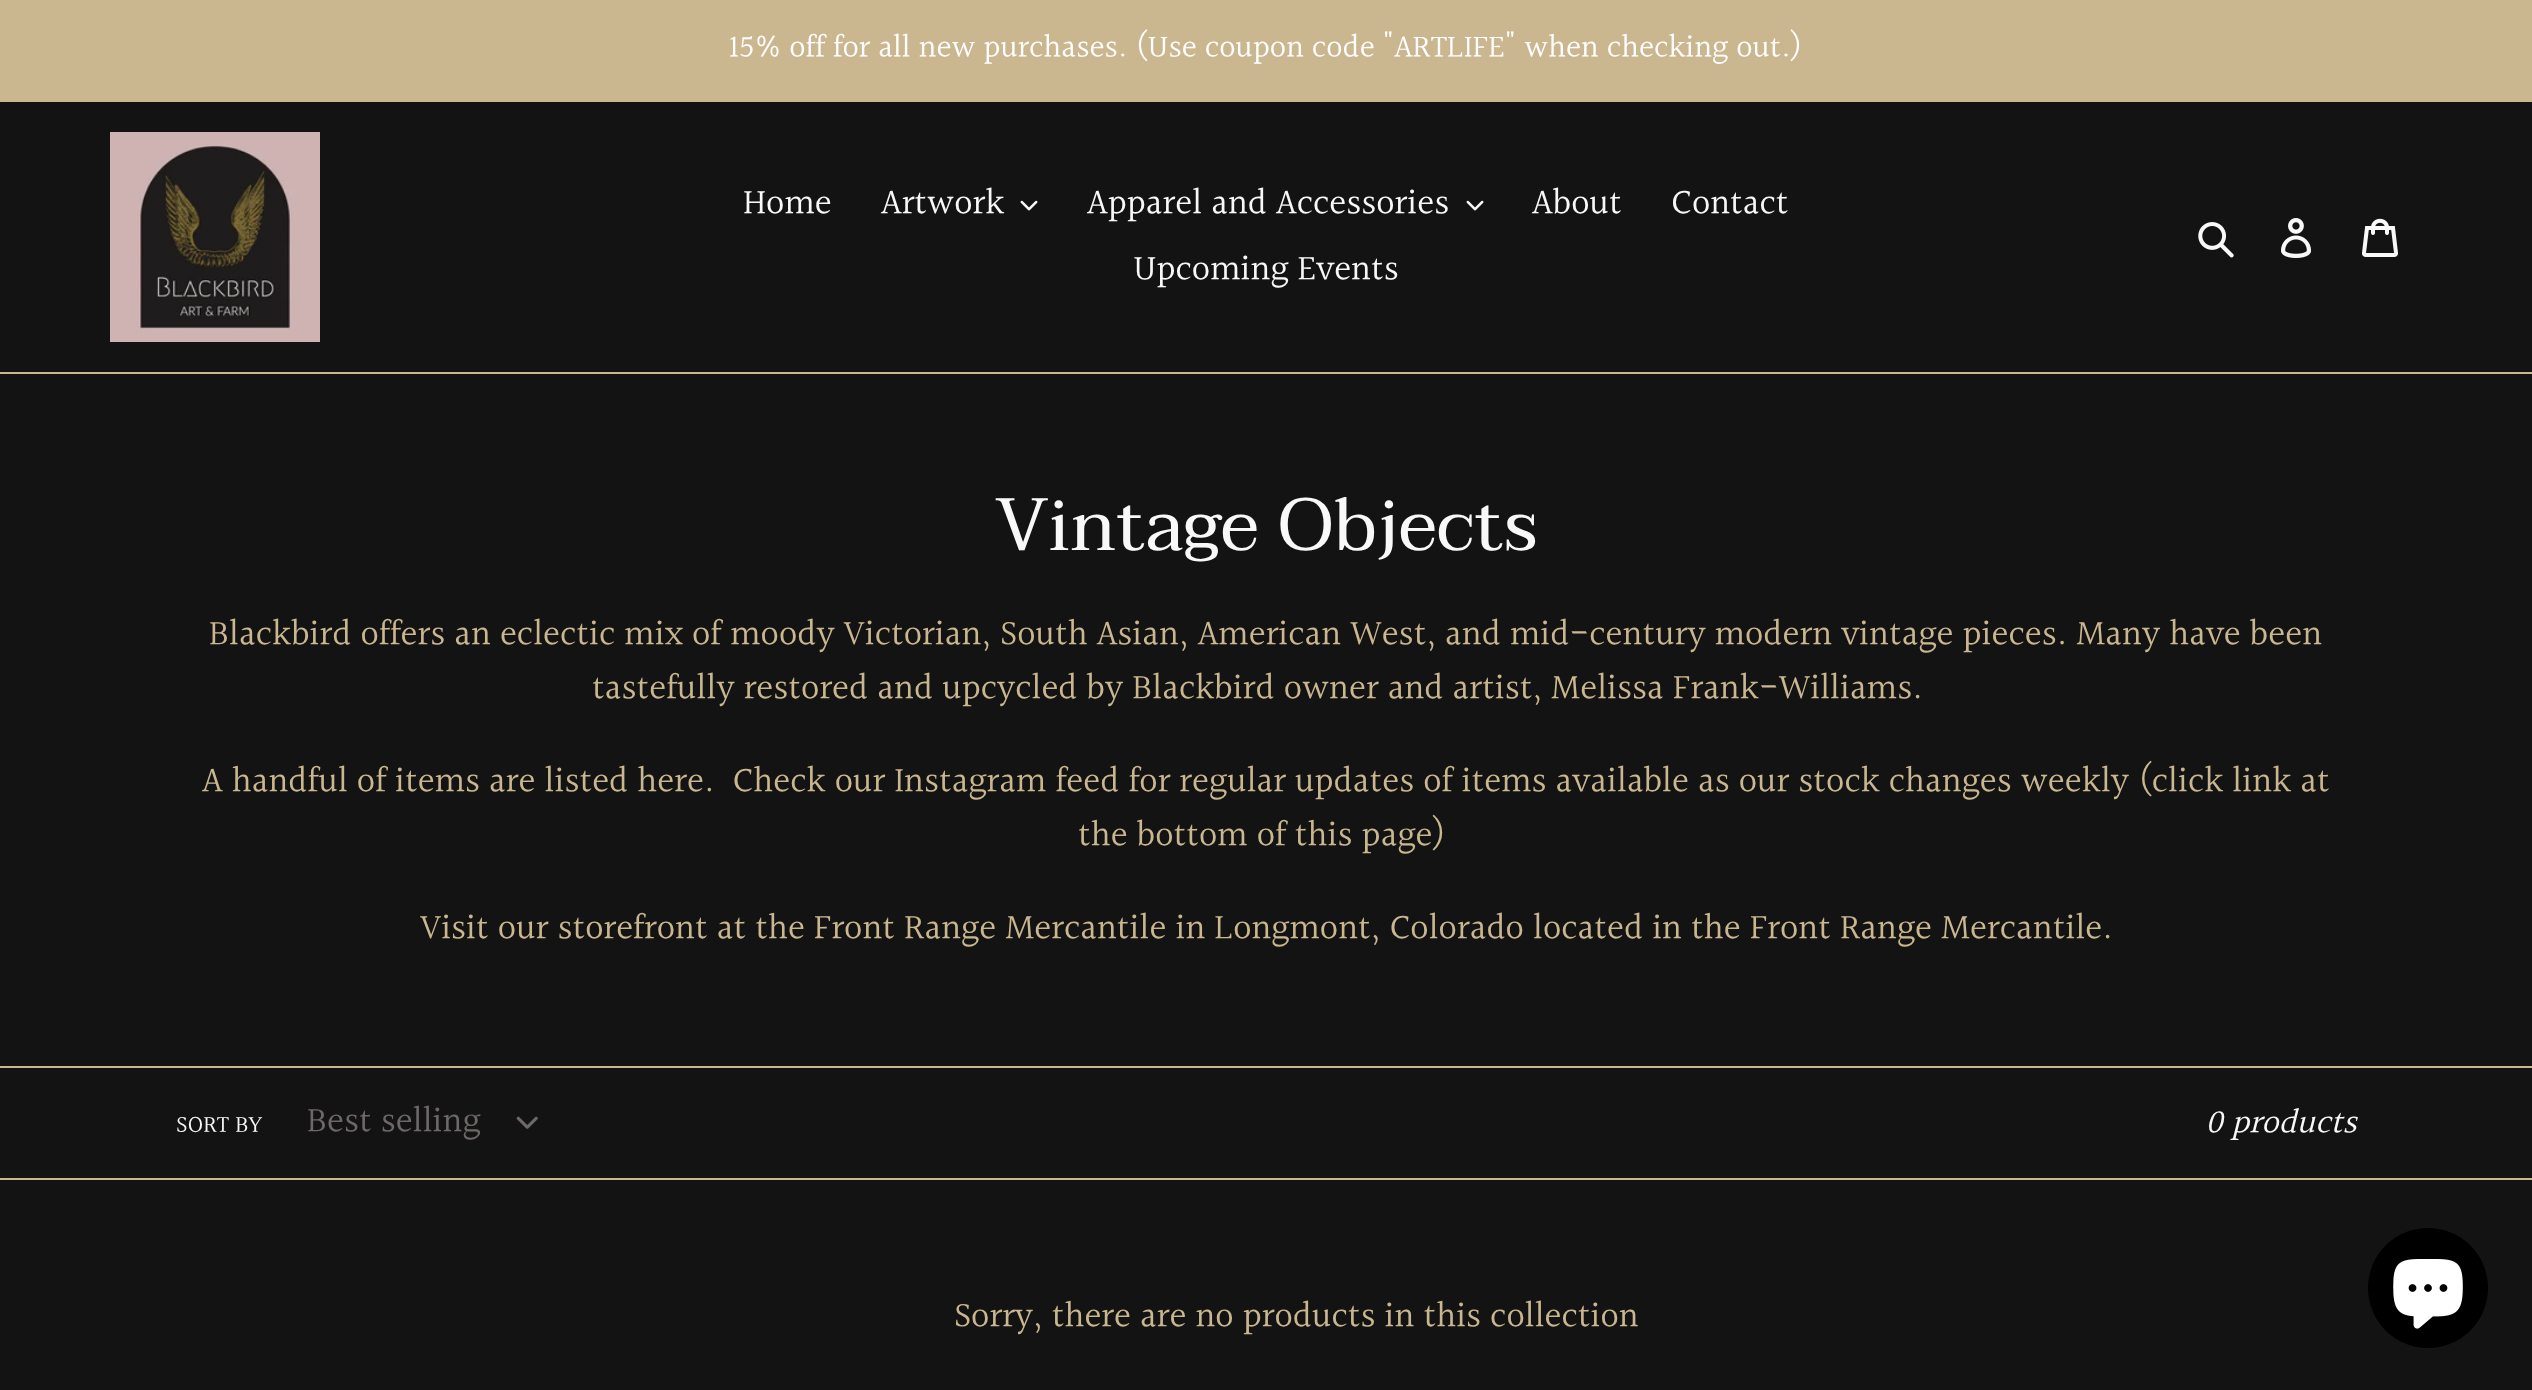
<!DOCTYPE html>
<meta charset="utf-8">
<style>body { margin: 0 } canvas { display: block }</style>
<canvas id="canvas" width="2532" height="1390"></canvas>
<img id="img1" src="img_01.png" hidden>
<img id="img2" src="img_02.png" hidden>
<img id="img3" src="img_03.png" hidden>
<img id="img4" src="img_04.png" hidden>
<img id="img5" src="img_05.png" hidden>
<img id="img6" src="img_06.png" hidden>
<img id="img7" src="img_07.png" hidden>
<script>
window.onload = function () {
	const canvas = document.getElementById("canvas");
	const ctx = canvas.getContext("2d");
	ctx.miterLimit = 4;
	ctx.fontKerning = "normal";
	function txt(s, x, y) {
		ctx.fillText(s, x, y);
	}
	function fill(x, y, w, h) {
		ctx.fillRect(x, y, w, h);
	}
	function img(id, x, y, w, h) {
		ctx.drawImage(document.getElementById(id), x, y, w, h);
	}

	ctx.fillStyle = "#131313";
	fill(0, 0, 2532, 1390);
	ctx.fillStyle = "#CAB790";
	fill(0, 0, 2532, 102);
	fill(0, 372, 2532, 2);
	img("img1", 110, 132, 210, 210);
	img("img2", 1020, 200, 18, 11);
	img("img2", 1466, 200, 18, 11);
	img("img3", 2198, 222, 36, 36);
	img("img4", 2281, 218, 31, 40);
	img("img5", 2362, 218, 36, 39);
	fill(0, 1066, 2532, 2);
	fill(0, 1178, 2532, 2);
	img("img6", 516, 1116, 22, 13);
	ctx.fillStyle = "#000000";
	ctx.beginPath();
	ctx.arc(2428, 1288, 60, 0, Math.PI * 2);
	ctx.fill();
	img("img7", 2393, 1259, 70, 70);
	ctx.font = "32px Halant";
	ctx.fillStyle = "#FFFFFF";
	txt("15% off for all new purchases. (Use coupon code \"ARTLIFE\" when checking out.)", 729, 58);
	ctx.font = "36px Halant";
	ctx.fillStyle = "#F8F8F8";
	txt("Home", 743, 215);
	txt("Artwork", 881, 215);
	txt("Apparel and Accessories", 1087, 215);
	txt("About", 1532, 215);
	txt("Contact", 1671, 215);
	txt("Upcoming Events", 1133, 281);
	ctx.font = "74px Taviraj";
	txt("Vintage Objects", 995, 550);
	ctx.font = "36px Halant";
	ctx.fillStyle = "#CAB790";
	txt("Blackbird offers an eclectic mix of moody Victorian, South Asian, American West, and mid-century modern vintage pieces. Many have been", 209, 646);
	txt("tastefully restored and upcycled by Blackbird owner and artist, Melissa Frank-Williams.", 592, 700);
	txt("A handful of items are listed here.  Check our Instagram feed for regular updates of items available as our stock changes weekly (click link at", 202, 793);
	txt("the bottom of this page)", 1078, 847);
	txt("Visit our storefront at the Front Range Mercantile in Longmont, Colorado located in the Front Range Mercantile.", 420, 940);
	ctx.font = "24px Halant";
	ctx.fillStyle = "#F8F8F8";
	txt("SORT BY", 176, 1133);
	ctx.font = "36px Halant";
	ctx.fillStyle = "#6E6868";
	txt("Best selling", 307, 1133);
	ctx.font = "italic 34px Halant";
	ctx.fillStyle = "#F8F8F8";
	txt("0 products", 2205, 1134);
	ctx.font = "36px Halant";
	ctx.fillStyle = "#CAB790";
	txt("Sorry, there are no products in this collection", 954, 1328);
};
</script>
